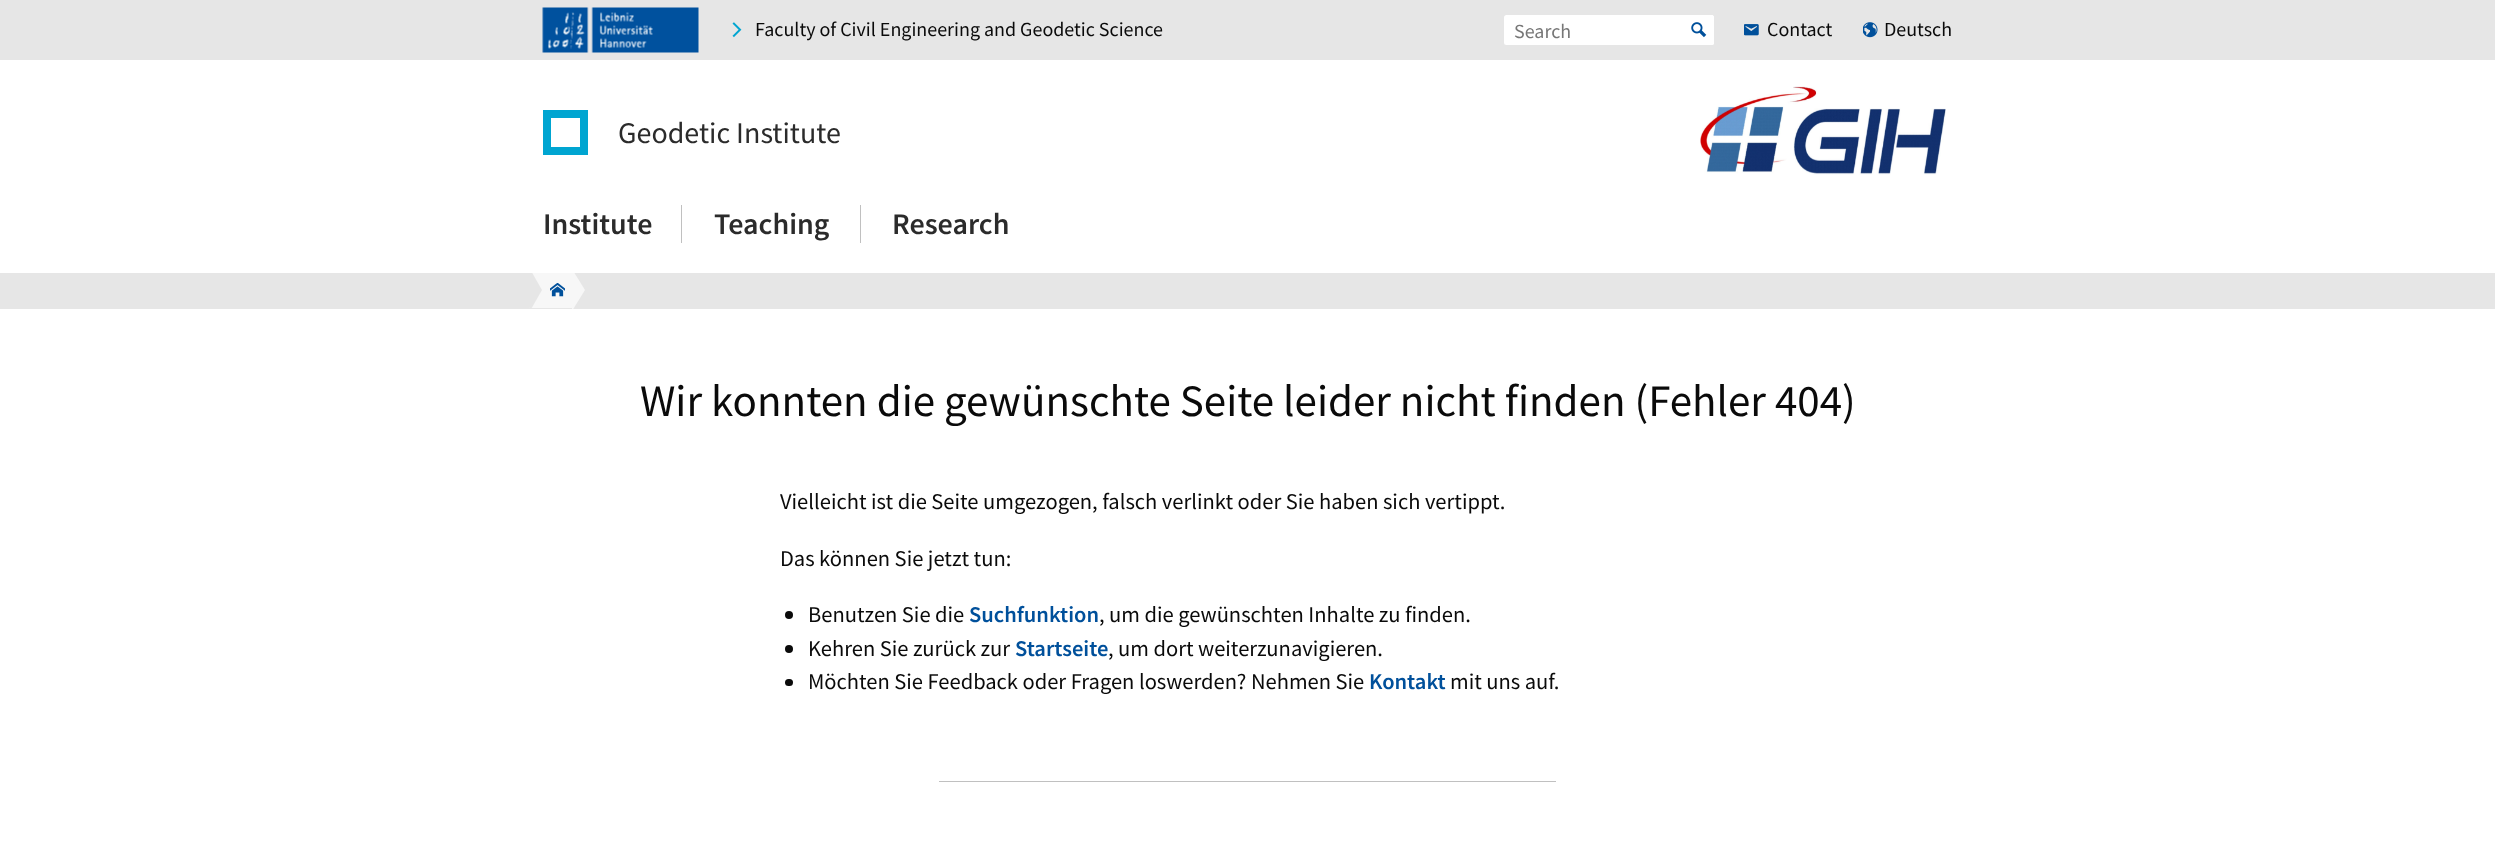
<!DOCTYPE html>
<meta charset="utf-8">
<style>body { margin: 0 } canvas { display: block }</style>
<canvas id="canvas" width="2495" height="863"></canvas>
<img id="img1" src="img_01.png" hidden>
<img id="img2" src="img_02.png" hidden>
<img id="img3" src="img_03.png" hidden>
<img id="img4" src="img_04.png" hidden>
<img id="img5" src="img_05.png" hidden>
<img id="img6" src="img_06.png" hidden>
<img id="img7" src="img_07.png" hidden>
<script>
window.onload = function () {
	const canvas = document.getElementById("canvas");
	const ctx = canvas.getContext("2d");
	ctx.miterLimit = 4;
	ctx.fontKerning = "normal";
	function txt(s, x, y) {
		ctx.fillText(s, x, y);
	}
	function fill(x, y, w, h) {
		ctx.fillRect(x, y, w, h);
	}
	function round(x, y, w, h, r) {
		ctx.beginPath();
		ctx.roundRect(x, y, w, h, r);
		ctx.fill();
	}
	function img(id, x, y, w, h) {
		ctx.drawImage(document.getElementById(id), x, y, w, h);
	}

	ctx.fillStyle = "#FFFFFF";
	fill(0, 0, 2495, 863);
	ctx.fillStyle = "#E6E6E6";
	fill(0, 0, 2495, 60);
	img("img1", 542, 7, 157, 46);
	img("img2", 732, 22, 10, 16);
	ctx.fillStyle = "#FFFFFF";
	round(1504, 15, 210, 30, 2.5);
	ctx.beginPath();
	ctx.roundRect(1684, 15, 30, 30, [0, 2.5, 2.5, 0]);
	ctx.fill();
	img("img3", 1691, 22, 16, 16);
	img("img4", 1744, 24, 15, 12);
	img("img5", 1863, 22, 15, 16);
	ctx.strokeStyle = "#00A5D1";
	ctx.lineWidth = 8;
	ctx.strokeRect(547, 114, 37, 37);
	img("img6", 1700, 86, 246, 89);
	ctx.fillStyle = "#C0C0C0";
	fill(681, 205, 1, 38);
	fill(860, 205, 1, 38);
	ctx.fillStyle = "#E6E6E6";
	fill(0, 273, 2495, 36);
	ctx.fillStyle = "#F7F7F7";
	fill(529, 273, 43, 35);
	ctx.save();
	ctx.beginPath();
	ctx.rect(524, 273, 1429, 36);
	ctx.clip();
	ctx.fillStyle = "#E6E6E6";
	ctx.beginPath();
	ctx.moveTo(530, 311);
	ctx.lineTo(530, 269);
	ctx.lineTo(542, 290);
	ctx.closePath();
	ctx.fill();
	ctx.beginPath();
	ctx.moveTo(528, 311);
	ctx.lineTo(528, 269);
	ctx.lineTo(540, 290);
	ctx.closePath();
	ctx.fill();
	ctx.restore();
	img("img7", 550, 283, 15, 14);
	ctx.save();
	ctx.beginPath();
	ctx.rect(524, 273, 1429, 36);
	ctx.clip();
	ctx.beginPath();
	ctx.moveTo(572, 311);
	ctx.lineTo(572, 269);
	ctx.lineTo(585, 290);
	ctx.closePath();
	ctx.fill();
	ctx.restore();
	ctx.fillStyle = "#0A0A0A";
	ctx.beginPath();
	ctx.arc(789, 615, 4, 0, Math.PI * 2);
	ctx.fill();
	ctx.beginPath();
	ctx.arc(789, 649, 4, 0, Math.PI * 2);
	ctx.fill();
	round(785, 679, 8, 7, 3.5);
	ctx.fillStyle = "#C0C0C0";
	fill(939, 781, 617, 1);
	ctx.font = "20px Source Sans Pro";
	ctx.fillStyle = "#0A0A0A";
	txt("Faculty of Civil Engineering and Geodetic Science", 755, 36);
	ctx.fillStyle = "#777777";
	txt("Search", 1514, 38);
	ctx.fillStyle = "#0A0A0A";
	txt("Contact", 1767, 36);
	txt("Deutsch", 1884, 36);
	ctx.font = "30px Source Sans Pro";
	ctx.fillStyle = "#2B2B2B";
	txt("Geodetic Institute", 618, 143);
	ctx.font = "600 30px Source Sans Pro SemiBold";
	txt("Institute", 543, 234);
	txt("Teaching", 714, 234);
	txt("Research", 892, 234);
	ctx.font = "45px Source Sans Pro";
	ctx.fillStyle = "#0A0A0A";
	txt("Wir konnten die gewünschte Seite leider nicht finden (Fehler 404)", 640, 416);
	ctx.font = "22.5px Source Sans Pro";
	txt("Vielleicht ist die Seite umgezogen, falsch verlinkt oder Sie haben sich vertippt.", 780, 509);
	txt("Das können Sie jetzt tun:", 780, 566);
	txt("Benutzen Sie die", 808, 622);
	ctx.font = "600 22.5px Source Sans Pro SemiBold";
	ctx.fillStyle = "#00509B";
	txt("Suchfunktion", 969, 622);
	ctx.font = "22.5px Source Sans Pro";
	ctx.fillStyle = "#0A0A0A";
	txt(", um die gewünschten Inhalte zu finden.", 1099, 622);
	txt("Kehren Sie zurück zur", 808, 656);
	ctx.font = "600 22.5px Source Sans Pro SemiBold";
	ctx.fillStyle = "#00509B";
	txt("Startseite", 1015, 656);
	ctx.font = "22.5px Source Sans Pro";
	ctx.fillStyle = "#0A0A0A";
	txt(", um dort weiterzunavigieren.", 1108, 656);
	txt("Möchten Sie Feedback oder Fragen loswerden? Nehmen Sie", 808, 689);
	ctx.font = "600 22.5px Source Sans Pro SemiBold";
	ctx.fillStyle = "#00509B";
	txt("Kontakt", 1369, 689);
	ctx.font = "22.5px Source Sans Pro";
	ctx.fillStyle = "#0A0A0A";
	txt("mit uns auf.", 1450, 689);
};
</script>
